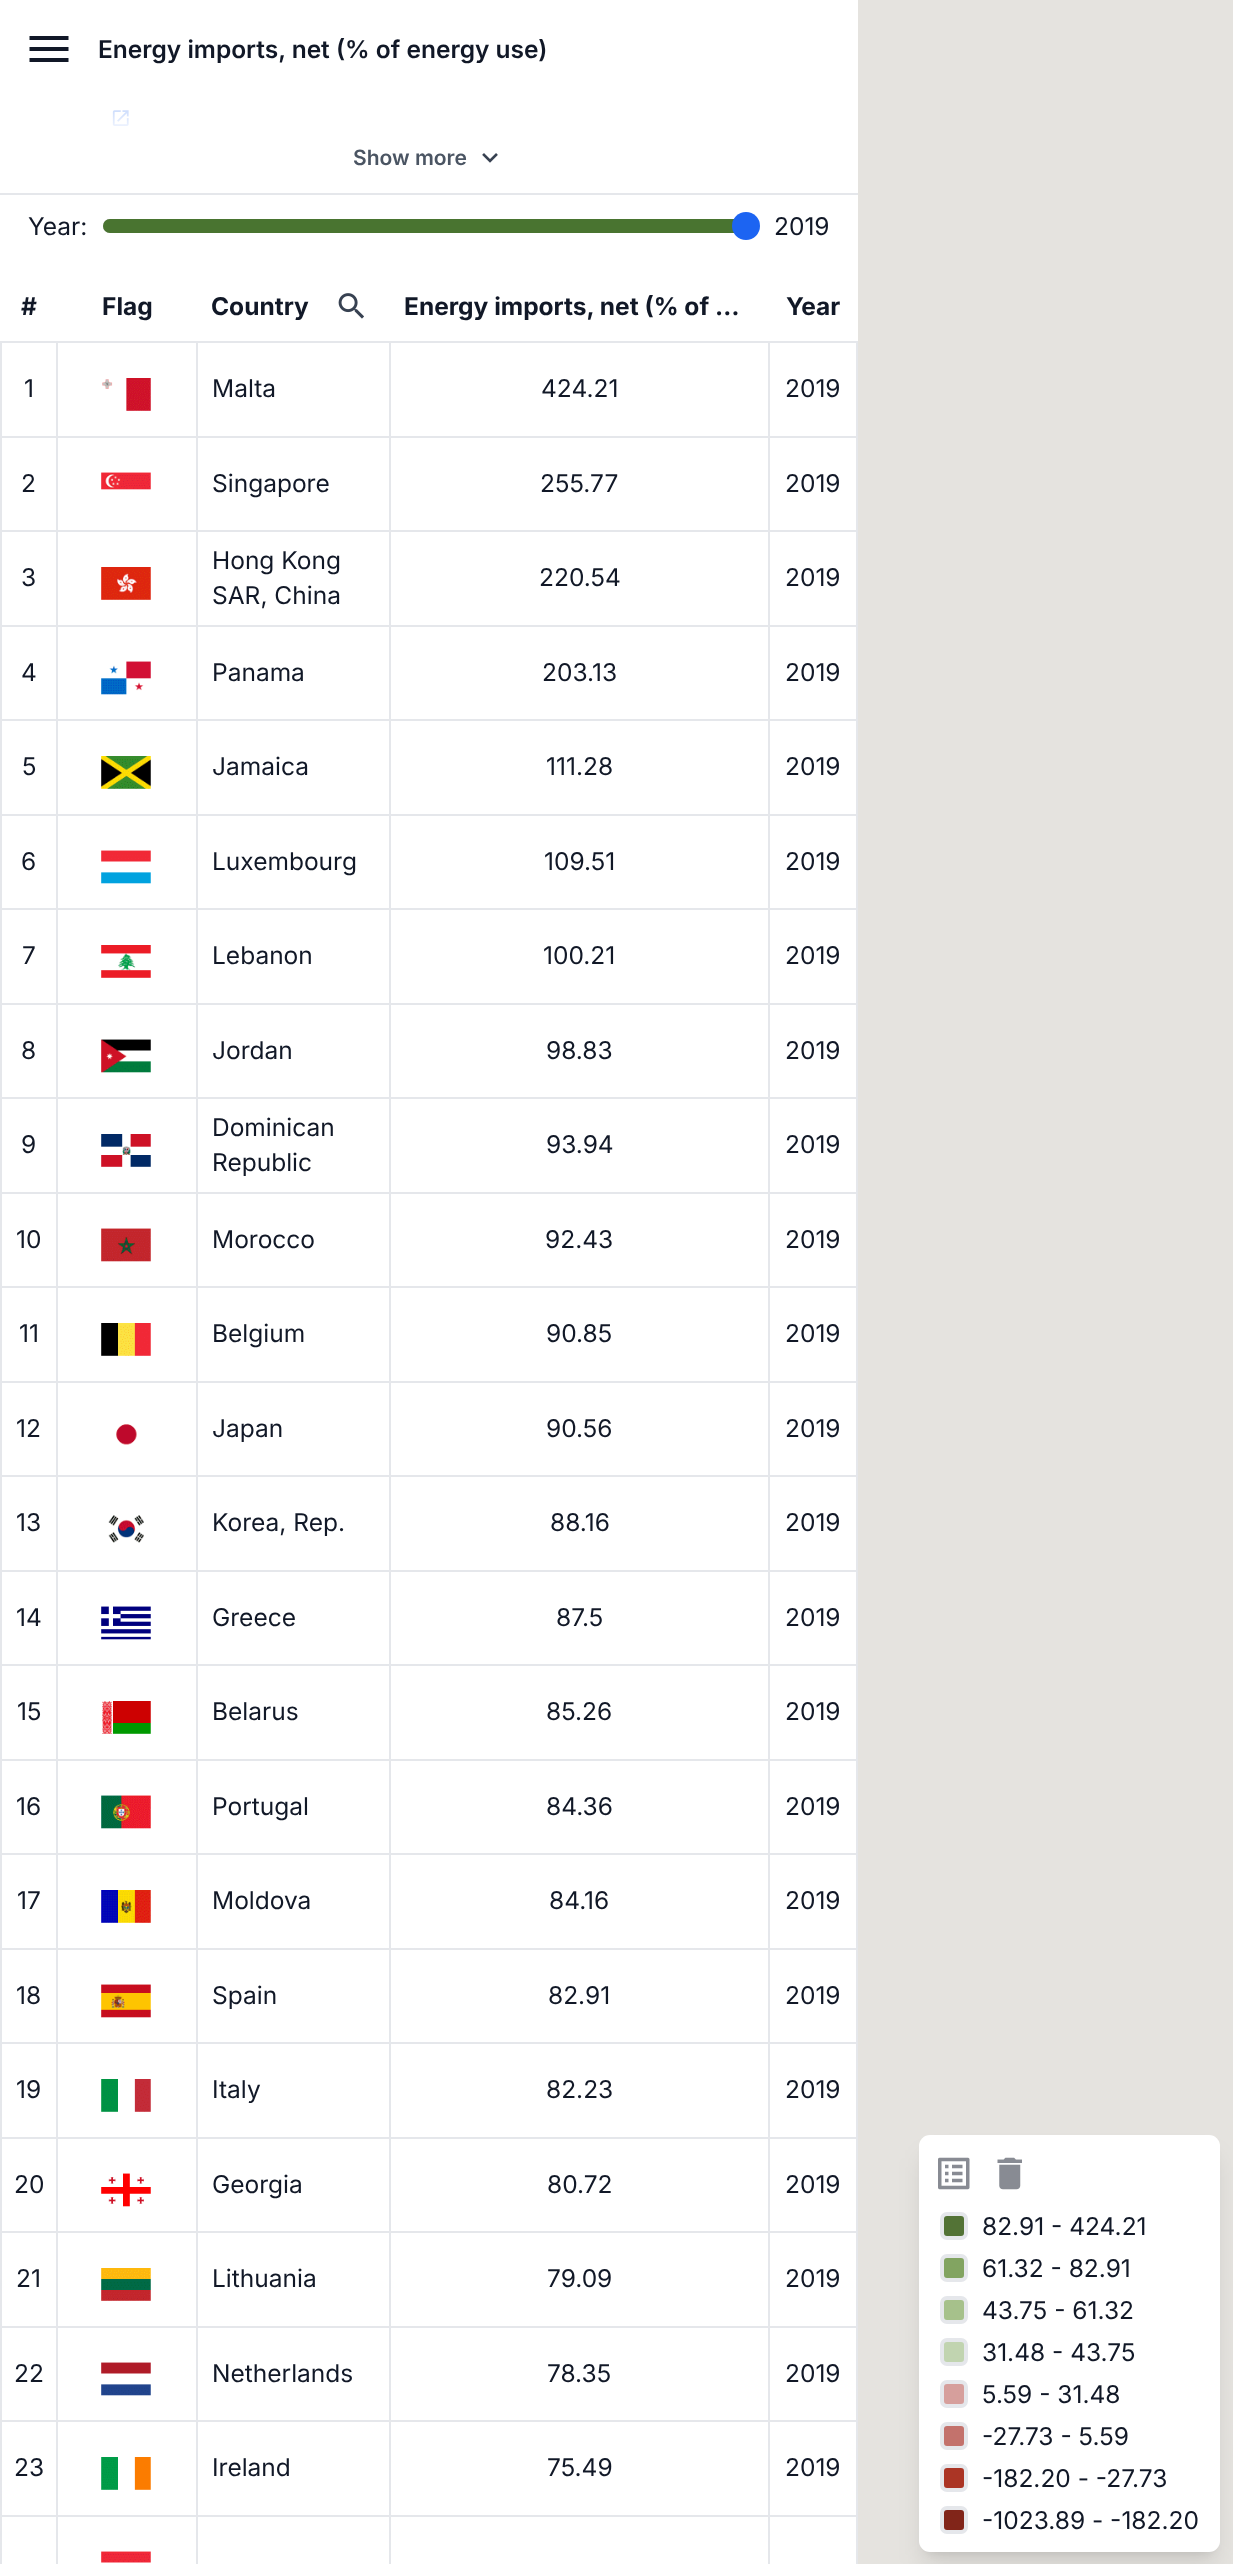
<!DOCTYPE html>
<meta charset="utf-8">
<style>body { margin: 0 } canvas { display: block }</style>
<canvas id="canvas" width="1233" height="2564"></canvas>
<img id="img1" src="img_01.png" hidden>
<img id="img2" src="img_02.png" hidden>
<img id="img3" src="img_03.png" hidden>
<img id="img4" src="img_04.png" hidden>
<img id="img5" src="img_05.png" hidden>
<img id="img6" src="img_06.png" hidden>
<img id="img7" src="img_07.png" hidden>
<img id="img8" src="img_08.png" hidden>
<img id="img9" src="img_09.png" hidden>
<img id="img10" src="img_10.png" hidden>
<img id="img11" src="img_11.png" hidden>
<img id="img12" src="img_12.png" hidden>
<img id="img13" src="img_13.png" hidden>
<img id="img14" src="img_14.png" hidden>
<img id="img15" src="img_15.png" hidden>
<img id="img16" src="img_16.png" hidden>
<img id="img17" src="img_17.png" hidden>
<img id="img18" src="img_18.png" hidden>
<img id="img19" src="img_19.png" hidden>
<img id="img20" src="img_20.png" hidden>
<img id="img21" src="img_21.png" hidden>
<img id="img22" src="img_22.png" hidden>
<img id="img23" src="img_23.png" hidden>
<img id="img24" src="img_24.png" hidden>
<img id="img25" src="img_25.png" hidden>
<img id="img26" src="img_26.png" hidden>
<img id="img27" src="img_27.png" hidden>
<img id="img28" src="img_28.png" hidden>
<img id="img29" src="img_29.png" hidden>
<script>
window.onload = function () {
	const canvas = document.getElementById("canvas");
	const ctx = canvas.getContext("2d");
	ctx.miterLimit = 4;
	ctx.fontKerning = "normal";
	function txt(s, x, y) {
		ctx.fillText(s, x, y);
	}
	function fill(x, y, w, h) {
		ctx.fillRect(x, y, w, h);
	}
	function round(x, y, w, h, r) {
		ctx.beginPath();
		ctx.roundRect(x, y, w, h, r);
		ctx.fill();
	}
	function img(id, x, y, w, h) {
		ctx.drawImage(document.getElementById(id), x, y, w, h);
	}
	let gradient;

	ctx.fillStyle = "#E5E3DF";
	fill(0, 0, 1233, 2564);
	ctx.fillStyle = "#FFFFFF";
	fill(0, 0, 858, 2564);
	ctx.fillStyle = "#111827";
	ctx.beginPath();
	ctx.moveTo(29.5, 62);
	ctx.lineTo(68.5, 62);
	ctx.lineTo(68.5, 58);
	ctx.lineTo(29.5, 58);
	ctx.closePath();
	ctx.moveTo(29.5, 51);
	ctx.lineTo(68.5, 51);
	ctx.lineTo(68.5, 47);
	ctx.lineTo(29.5, 47);
	ctx.closePath();
	ctx.moveTo(29.5, 36);
	ctx.lineTo(29.5, 40);
	ctx.lineTo(68.5, 40);
	ctx.lineTo(68.5, 36);
	ctx.closePath();
	ctx.fill();
	ctx.fillStyle = "#E5E7EB";
	fill(0, 193, 858, 2);
	img("img1", 112, 110, 17, 16);
	gradient = ctx.createLinearGradient(429, 130, 429, 18);
	gradient.addColorStop(0, "rgba(255, 255, 255, 0.95)");
	gradient.addColorStop(1, "rgba(255, 255, 255, 0)");
	ctx.fillStyle = gradient;
	fill(112, 110, 17, 16);
	img("img2", 482, 153, 16, 10);
	ctx.beginPath();
	ctx.roundRect(104, 220, 653, 12, 6);
	ctx.strokeStyle = "#B2B2B2";
	ctx.lineWidth = 2;
	ctx.stroke();
	ctx.fillStyle = "#497430";
	ctx.beginPath();
	ctx.roundRect(103, 219, 643, 14, [7, 0, 0, 7]);
	ctx.fill();
	ctx.fillStyle = "#1C64F2";
	ctx.beginPath();
	ctx.arc(746, 226, 14, 0, Math.PI * 2);
	ctx.fill();
	img("img3", 338, 293, 26, 26);
	ctx.fillStyle = "#E5E7EB";
	fill(0, 436, 858, 2);
	fill(768, 341, 90, 2);
	fill(0, 530, 858, 2);
	fill(0, 625, 858, 2);
	fill(0, 719, 858, 2);
	fill(0, 814, 858, 2);
	fill(0, 908, 858, 2);
	fill(0, 1003, 858, 2);
	fill(0, 1097, 858, 2);
	fill(0, 1192, 858, 2);
	fill(0, 1286, 858, 2);
	fill(0, 1381, 858, 2);
	fill(0, 1475, 858, 2);
	fill(0, 1570, 858, 2);
	fill(0, 1664, 858, 2);
	fill(0, 1759, 858, 2);
	fill(0, 1853, 858, 2);
	fill(0, 1948, 858, 2);
	fill(0, 2042, 858, 2);
	fill(0, 2137, 858, 2);
	fill(0, 2231, 858, 2);
	fill(0, 2326, 858, 2);
	fill(0, 2420, 858, 2);
	fill(0, 2515, 858, 2);
	fill(768, 436, 2, 2128);
	fill(768, 341, 2, 97);
	fill(389, 341, 381, 2);
	fill(389, 436, 2, 2128);
	fill(389, 341, 2, 97);
	fill(196, 341, 194, 2);
	fill(196, 436, 2, 2128);
	fill(196, 341, 2, 97);
	fill(56, 341, 142, 2);
	fill(56, 436, 2, 2128);
	fill(56, 341, 2, 97);
	fill(0, 341, 58, 2);
	fill(0, 436, 2, 2128);
	fill(0, 341, 2, 97);
	img("img4", 102, 378, 49, 33);
	fill(856, 436, 2, 2128);
	fill(856, 341, 2, 97);
	img("img5", 101, 2551, 50, 12);
	img("img6", 101, 472, 50, 18);
	img("img7", 101, 567, 50, 33);
	img("img8", 101, 661, 50, 34);
	img("img9", 101, 756, 50, 33);
	img("img10", 101, 850, 50, 34);
	img("img11", 101, 945, 50, 33);
	img("img12", 101, 1039, 50, 34);
	img("img13", 101, 1134, 50, 33);
	img("img14", 101, 1228, 50, 34);
	img("img15", 101, 1323, 50, 33);
	img("img16", 116, 1424, 21, 21);
	img("img17", 108, 1515, 36, 28);
	img("img18", 101, 1606, 50, 34);
	img("img19", 102, 1701, 49, 33);
	img("img20", 101, 1795, 50, 34);
	img("img21", 101, 1890, 50, 33);
	img("img22", 101, 1984, 50, 34);
	img("img23", 101, 2079, 50, 33);
	img("img24", 101, 2173, 50, 34);
	img("img25", 101, 2268, 50, 33);
	img("img26", 101, 2362, 50, 34);
	img("img27", 101, 2457, 50, 33);
	ctx.fillStyle = "rgba(0, 0, 0, 0.1)";
	ctx.filter = "blur(5px)";
	ctx.beginPath();
	ctx.roundRect(926, 2149, 287, 403, 4);
	ctx.fill();
	ctx.filter = "none";
	ctx.filter = "blur(13px)";
	ctx.beginPath();
	ctx.roundRect(924, 2158, 291, 406, 5);
	ctx.fill();
	ctx.filter = "none";
	ctx.fillStyle = "#FFFFFF";
	round(919, 2135, 301, 417, 11);
	img("img28", 938, 2157, 32, 33);
	img("img29", 997, 2157, 25, 33);
	ctx.fillStyle = "#537336";
	ctx.beginPath();
	ctx.roundRect(942, 2214, 24, 24, 5);
	ctx.fill();
	ctx.strokeStyle = "#E5E7EB";
	ctx.lineWidth = 4;
	ctx.stroke();
	ctx.fillStyle = "#82A461";
	ctx.beginPath();
	ctx.roundRect(942, 2256, 24, 24, 5);
	ctx.fill();
	ctx.stroke();
	ctx.fillStyle = "#A6C18B";
	ctx.beginPath();
	ctx.roundRect(942, 2298, 24, 24, 5);
	ctx.fill();
	ctx.stroke();
	ctx.fillStyle = "#C1D4B0";
	ctx.beginPath();
	ctx.roundRect(942, 2340, 24, 24, 5);
	ctx.fill();
	ctx.stroke();
	ctx.fillStyle = "#D69F9C";
	ctx.beginPath();
	ctx.roundRect(942, 2382, 24, 24, 5);
	ctx.fill();
	ctx.stroke();
	ctx.fillStyle = "#C3726C";
	ctx.beginPath();
	ctx.roundRect(942, 2424, 24, 24, 5);
	ctx.fill();
	ctx.stroke();
	ctx.fillStyle = "#AB3525";
	ctx.beginPath();
	ctx.roundRect(942, 2466, 24, 24, 5);
	ctx.fill();
	ctx.stroke();
	ctx.fillStyle = "#812519";
	ctx.beginPath();
	ctx.roundRect(942, 2508, 24, 24, 5);
	ctx.fill();
	ctx.stroke();
	ctx.font = "600 24.5px Inter";
	ctx.fillStyle = "#111827";
	txt("Energy imports, net (% of energy use)", 98, 58);
	ctx.font = "600 21px Inter";
	ctx.fillStyle = "#4B5563";
	txt("Show more", 353, 165);
	ctx.font = "24.5px Inter";
	ctx.fillStyle = "#111827";
	txt("Year:", 28, 235);
	txt("2019", 774, 235);
	ctx.font = "bold 24.5px Inter";
	txt("#", 21, 315);
	txt("Flag", 102, 315);
	txt("Country", 211, 315);
	txt("Energy imports, net (% of …", 404, 315);
	txt("Year", 786, 315);
	ctx.font = "24.5px Inter";
	txt("1", 24, 397);
	txt("Malta", 212, 397);
	txt("424.21", 541, 397);
	txt("2019", 785, 397);
	txt("2", 21, 492);
	txt("Singapore", 212, 492);
	txt("255.77", 540, 492);
	txt("2019", 785, 492);
	txt("3", 21, 586);
	txt("Hong Kong", 212, 569);
	txt("SAR, China", 212, 604);
	txt("220.54", 539, 586);
	txt("2019", 785, 586);
	txt("4", 21, 681);
	txt("Panama", 212, 681);
	txt("203.13", 542, 681);
	txt("2019", 785, 681);
	txt("5", 22, 775);
	txt("Jamaica", 212, 775);
	txt("111.28", 546, 775);
	txt("2019", 785, 775);
	txt("6", 21, 870);
	txt("Luxembourg", 212, 870);
	txt("109.51", 544, 870);
	txt("2019", 785, 870);
	txt("7", 22, 964);
	txt("Lebanon", 212, 964);
	txt("100.21", 543, 964);
	txt("2019", 785, 964);
	txt("8", 21, 1059);
	txt("Jordan", 212, 1059);
	txt("98.83", 546, 1059);
	txt("2019", 785, 1059);
	txt("9", 21, 1153);
	txt("Dominican", 212, 1136);
	txt("Republic", 212, 1171);
	txt("93.94", 546, 1153);
	txt("2019", 785, 1153);
	txt("10", 16, 1248);
	txt("Morocco", 212, 1248);
	txt("92.43", 545, 1248);
	txt("2019", 785, 1248);
	txt("11", 19, 1342);
	txt("Belgium", 212, 1342);
	txt("90.85", 546, 1342);
	txt("2019", 785, 1342);
	txt("12", 16, 1437);
	txt("Japan", 212, 1437);
	txt("90.56", 546, 1437);
	txt("2019", 785, 1437);
	txt("13", 16, 1531);
	txt("Korea, Rep.", 212, 1531);
	txt("88.16", 550, 1531);
	txt("2019", 785, 1531);
	txt("14", 16, 1626);
	txt("Greece", 212, 1626);
	txt("87.5", 556, 1626);
	txt("2019", 785, 1626);
	txt("15", 17, 1720);
	txt("Belarus", 212, 1720);
	txt("85.26", 546, 1720);
	txt("2019", 785, 1720);
	txt("16", 16, 1815);
	txt("Portugal", 212, 1815);
	txt("84.36", 546, 1815);
	txt("2019", 785, 1815);
	txt("17", 17, 1909);
	txt("Moldova", 212, 1909);
	txt("84.16", 549, 1909);
	txt("2019", 785, 1909);
	txt("18", 16, 2004);
	txt("Spain", 212, 2004);
	txt("82.91", 548, 2004);
	txt("2019", 785, 2004);
	txt("19", 16, 2098);
	txt("Italy", 212, 2098);
	txt("82.23", 546, 2098);
	txt("2019", 785, 2098);
	txt("20", 14, 2193);
	txt("Georgia", 212, 2193);
	txt("80.72", 547, 2193);
	txt("2019", 785, 2193);
	txt("21", 16, 2287);
	txt("Lithuania", 212, 2287);
	txt("79.09", 547, 2287);
	txt("2019", 785, 2287);
	txt("22", 14, 2382);
	txt("Netherlands", 212, 2382);
	txt("78.35", 547, 2382);
	txt("2019", 785, 2382);
	txt("23", 14, 2476);
	txt("Ireland", 212, 2476);
	txt("75.49", 547, 2476);
	txt("2019", 785, 2476);
	txt("82.91 - 424.21", 982, 2235);
	txt("61.32 - 82.91", 982, 2277);
	txt("43.75 - 61.32", 982, 2319);
	txt("31.48 - 43.75", 982, 2361);
	txt("5.59 - 31.48", 982, 2403);
	txt("-27.73 - 5.59", 982, 2445);
	txt("-182.20 - -27.73", 982, 2487);
	txt("-1023.89 - -182.20", 982, 2529);
};
</script>
